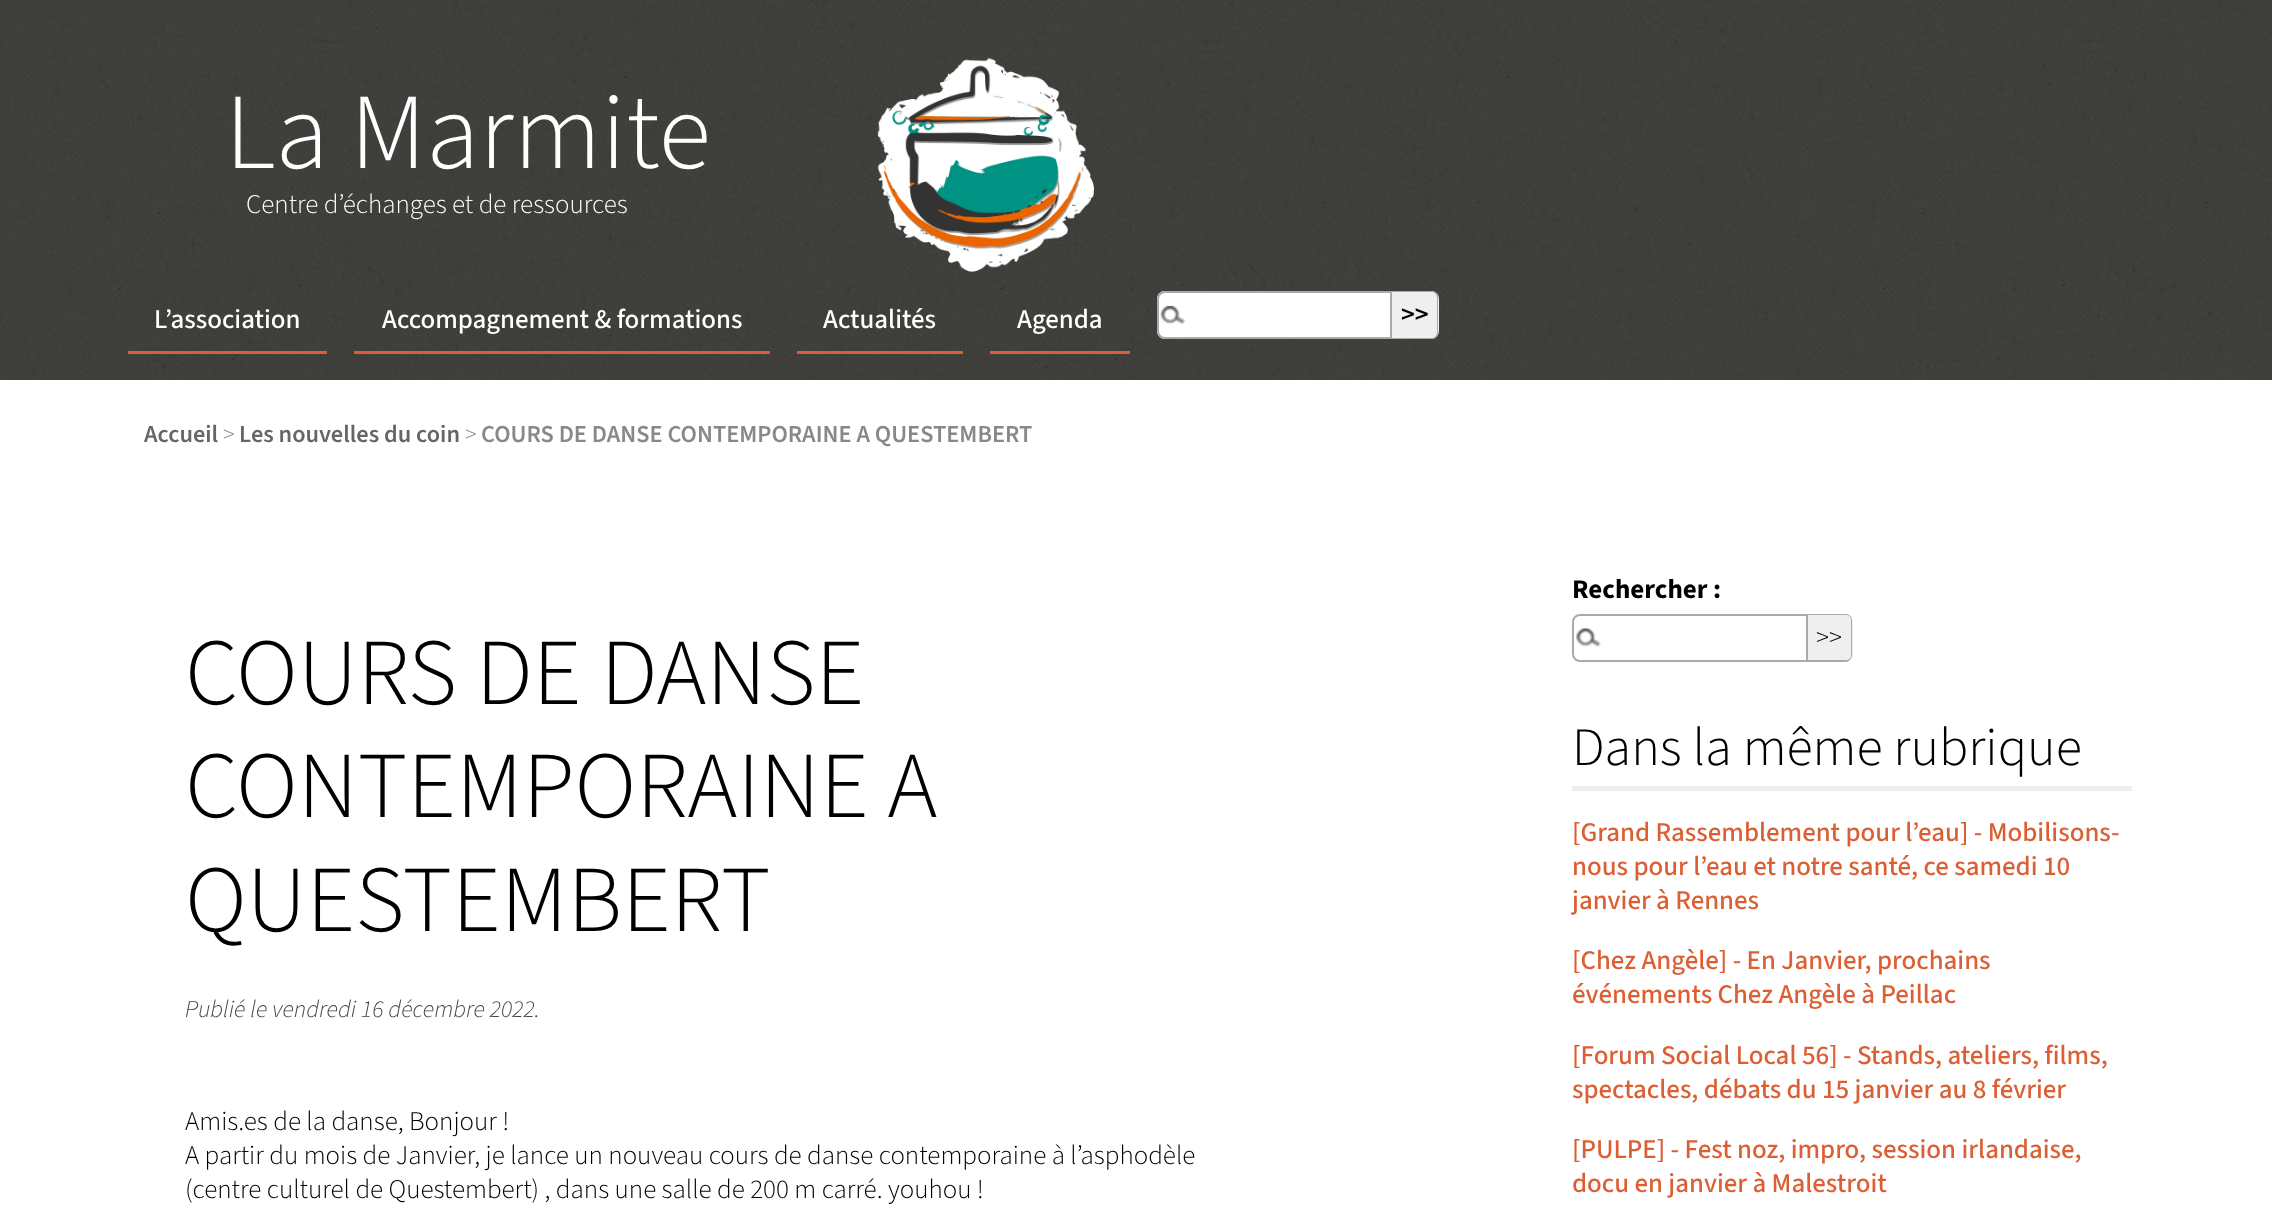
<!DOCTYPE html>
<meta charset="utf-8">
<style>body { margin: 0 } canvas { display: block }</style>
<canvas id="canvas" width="2272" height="1206"></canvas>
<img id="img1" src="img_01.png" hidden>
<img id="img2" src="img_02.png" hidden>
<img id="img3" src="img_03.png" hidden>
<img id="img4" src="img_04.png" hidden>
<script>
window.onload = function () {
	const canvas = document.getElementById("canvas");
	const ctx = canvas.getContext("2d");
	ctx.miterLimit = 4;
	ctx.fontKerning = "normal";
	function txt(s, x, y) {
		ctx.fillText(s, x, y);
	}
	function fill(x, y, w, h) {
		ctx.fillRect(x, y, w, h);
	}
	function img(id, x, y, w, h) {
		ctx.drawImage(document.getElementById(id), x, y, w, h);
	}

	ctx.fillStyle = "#FFFFFF";
	fill(0, 0, 2272, 1206);
	img("img1", 0, 0, 2272, 380);
	ctx.fillStyle = "rgba(0, 0, 0, 0.7)";
	fill(0, 0, 2272, 291);
	img("img2", 877, 57, 218, 215);
	fill(0, 291, 2272, 89);
	ctx.fillStyle = "#DC5F34";
	fill(128, 351, 199, 3);
	fill(354, 351, 416, 3);
	fill(797, 351, 166, 3);
	fill(990, 351, 140, 3);
	ctx.fillStyle = "#FFFFFF";
	ctx.beginPath();
	ctx.roundRect(1157, 291, 235, 48, [8, 0, 0, 8]);
	ctx.fill();
	img("img3", 1160, 306, 26, 18);
	ctx.beginPath();
	ctx.roundRect(1158, 292, 233, 46, [7, 0, 0, 7]);
	ctx.strokeStyle = "#AAAAAA";
	ctx.lineWidth = 2;
	ctx.stroke();
	ctx.fillStyle = "#EFEFEF";
	ctx.beginPath();
	ctx.roundRect(1392, 291, 47, 48, [0, 8, 8, 0]);
	ctx.fill();
	ctx.fillStyle = "#AAAAAA";
	ctx.beginPath();
	ctx.moveTo(1392, 291);
	ctx.lineTo(1432, 291);
	ctx.bezierCurveTo(1435, 291, 1438, 294, 1438, 298);
	ctx.lineTo(1438, 332);
	ctx.bezierCurveTo(1438, 336, 1435, 339, 1432, 339);
	ctx.lineTo(1392, 339);
	ctx.closePath();
	ctx.moveTo(1392, 292);
	ctx.lineTo(1432, 292);
	ctx.bezierCurveTo(1435, 292, 1437, 295, 1437, 298);
	ctx.lineTo(1437, 332);
	ctx.bezierCurveTo(1437, 335, 1435, 338, 1432, 338);
	ctx.lineTo(1392, 338);
	ctx.closePath();
	ctx.fill("evenodd");
	img("img4", 1576, 628, 25, 19);
	ctx.beginPath();
	ctx.roundRect(1573, 615, 234, 46, [7, 0, 0, 7]);
	ctx.stroke();
	ctx.fillStyle = "#EFEFEF";
	ctx.beginPath();
	ctx.roundRect(1808, 614, 45, 48, [0, 8, 8, 0]);
	ctx.fill();
	ctx.fillStyle = "#AAAAAA";
	ctx.beginPath();
	ctx.moveTo(1808, 614);
	ctx.lineTo(1846, 614);
	ctx.bezierCurveTo(1849, 614, 1852, 617, 1852, 620);
	ctx.lineTo(1852, 655);
	ctx.bezierCurveTo(1852, 658, 1849, 662, 1846, 662);
	ctx.lineTo(1808, 662);
	ctx.closePath();
	ctx.moveTo(1808, 615);
	ctx.lineTo(1846, 615);
	ctx.bezierCurveTo(1849, 615, 1851, 617, 1851, 620);
	ctx.lineTo(1851, 655);
	ctx.bezierCurveTo(1851, 658, 1849, 660, 1846, 660);
	ctx.lineTo(1808, 660);
	ctx.closePath();
	ctx.fill("evenodd");
	ctx.fillStyle = "#EEEEEE";
	fill(1572, 786, 560, 5);
	ctx.font = "300 108px 'Source Sans 3'";
	ctx.fillStyle = "#FFFFFF";
	txt("La Marmite", 225, 168);
	ctx.font = "300 27px 'Source Sans 3'";
	txt("Centre d’échanges et de ressources", 246, 213);
	ctx.font = "500 27px 'Source Sans 3'";
	txt("L’association", 154, 328);
	txt("Accompagnement & formations", 382, 328);
	txt("Actualités", 823, 328);
	txt("Agenda", 1017, 328);
	ctx.font = "600 27px 'Source Sans 3'";
	ctx.fillStyle = "#000000";
	txt(">>", 1401, 323);
	ctx.font = "600 24.3px 'Source Sans 3'";
	ctx.fillStyle = "#666666";
	txt("Accueil", 144, 442);
	ctx.font = "300 24.3px 'Source Sans 3'";
	ctx.fillStyle = "#888888";
	txt(">", 223, 442);
	ctx.font = "600 24.3px 'Source Sans 3'";
	ctx.fillStyle = "#666666";
	txt("Les nouvelles du coin", 239, 442);
	ctx.font = "300 24.3px 'Source Sans 3'";
	ctx.fillStyle = "#888888";
	txt(">", 465, 442);
	ctx.font = "600 24.3px 'Source Sans 3'";
	txt("COURS DE DANSE CONTEMPORAINE A QUESTEMBERT", 481, 442);
	ctx.font = "300 94.5px 'Source Sans 3'";
	ctx.fillStyle = "#000000";
	txt("COURS DE DANSE", 185, 704);
	txt("CONTEMPORAINE A", 185, 817);
	txt("QUESTEMBERT", 185, 931);
	ctx.font = "italic 300 24.3px 'Source Sans 3'";
	ctx.fillStyle = "#444444";
	txt("Publié le vendredi 16 décembre 2022.", 185, 1017);
	ctx.font = "300 27px 'Source Sans 3'";
	ctx.fillStyle = "#000000";
	txt("Amis.es de la danse, Bonjour !", 185, 1130);
	txt("A partir du mois de Janvier, je lance un nouveau cours de danse contemporaine à l’asphodèle", 185, 1164);
	txt("(centre culturel de Questembert) , dans une salle de 200 m carré. youhou !", 185, 1198);
	ctx.font = "bold 27px 'Source Sans 3'";
	txt("Rechercher :", 1572, 598);
	ctx.font = "300 27px 'Source Sans 3'";
	txt(">>", 1816, 646);
	ctx.font = "300 54px 'Source Sans 3'";
	txt("Dans la même rubrique", 1572, 765);
	ctx.font = "500 27px 'Source Sans 3'";
	ctx.fillStyle = "#DC5F34";
	txt("[Grand Rassemblement pour l’eau] - Mobilisons-", 1572, 841);
	txt("nous pour l’eau et notre santé, ce samedi 10", 1572, 875);
	txt("janvier à Rennes", 1572, 909);
	txt("[Chez Angèle] - En Janvier, prochains", 1572, 969);
	txt("événements Chez Angèle à Peillac", 1572, 1003);
	txt("[Forum Social Local 56] - Stands, ateliers, films,", 1572, 1064);
	txt("spectacles, débats du 15 janvier au 8 février", 1572, 1098);
	txt("[PULPE] - Fest noz, impro, session irlandaise,", 1572, 1158);
	txt("docu en janvier à Malestroit", 1572, 1192);
};
</script>
